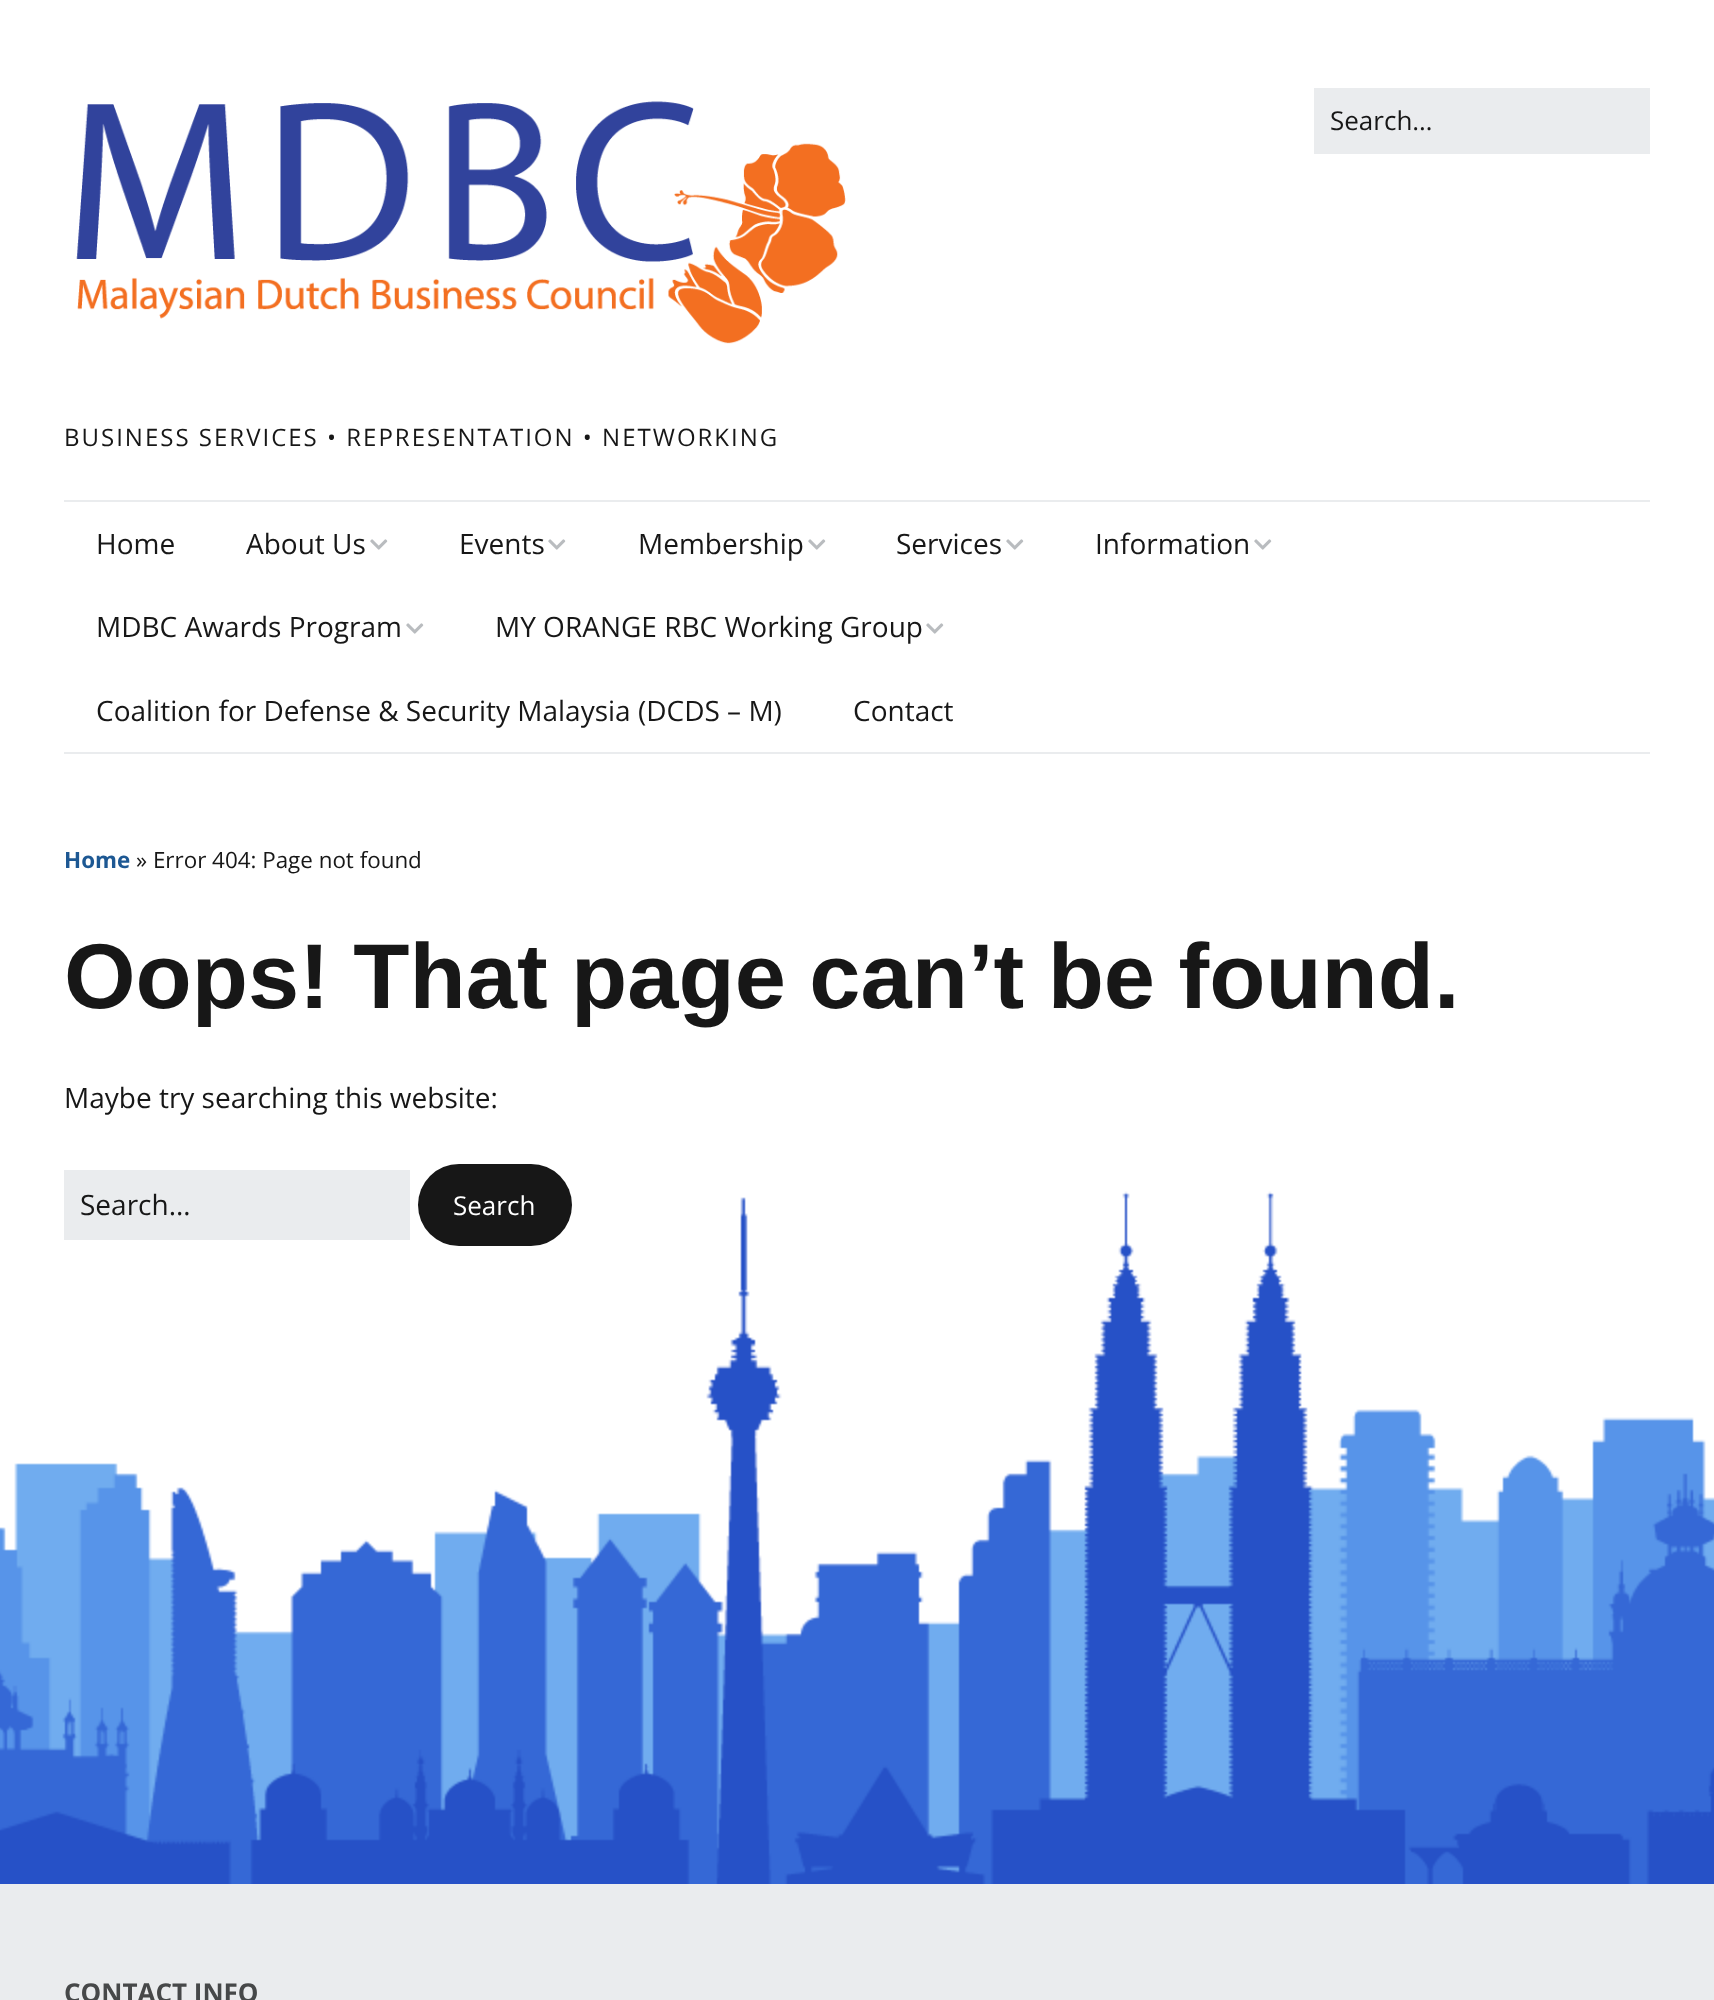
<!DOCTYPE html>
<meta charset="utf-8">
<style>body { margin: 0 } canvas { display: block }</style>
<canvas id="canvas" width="1714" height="2000"></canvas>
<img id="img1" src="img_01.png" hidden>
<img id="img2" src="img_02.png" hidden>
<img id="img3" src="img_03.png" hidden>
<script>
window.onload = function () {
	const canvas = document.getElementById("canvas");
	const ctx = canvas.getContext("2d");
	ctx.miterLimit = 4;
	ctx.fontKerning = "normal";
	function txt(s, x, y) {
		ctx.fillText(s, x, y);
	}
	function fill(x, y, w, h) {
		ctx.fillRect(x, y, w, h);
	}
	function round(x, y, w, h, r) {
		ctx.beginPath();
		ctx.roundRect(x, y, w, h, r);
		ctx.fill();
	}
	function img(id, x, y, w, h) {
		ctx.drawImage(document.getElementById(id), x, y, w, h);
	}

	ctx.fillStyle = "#FFFFFF";
	fill(0, 0, 1714, 2000);
	ctx.fillStyle = "#EAECEE";
	fill(1314, 88, 336, 66);
	img("img1", 76, 101, 770, 243);
	fill(64, 500, 1586, 2);
	fill(64, 752, 1586, 2);
	img("img2", 370, 539, 18, 11);
	img("img2", 548, 539, 18, 11);
	img("img2", 808, 539, 18, 11);
	img("img2", 1006, 539, 18, 11);
	img("img2", 1254, 539, 18, 11);
	img("img2", 406, 623, 18, 11);
	img("img2", 926, 623, 18, 11);
	img("img3", 0, 1191, 1714, 693);
	fill(64, 1170, 346, 70);
	ctx.fillStyle = "#171717";
	round(418, 1164, 154, 82, 41);
	ctx.fillStyle = "#EAECEE";
	fill(0, 1884, 1714, 116);
	ctx.font = "26px Open Sans";
	ctx.fillStyle = "#171717";
	txt("Search…", 1330, 130);
	ctx.letterSpacing = "2px";
	ctx.font = "24px Open Sans";
	txt("BUSINESS SERVICES • REPRESENTATION • NETWORKING", 64, 446);
	ctx.letterSpacing = "0px";
	ctx.font = "28px Open Sans";
	txt("Home", 96, 554);
	txt("About Us", 246, 554);
	txt("Events", 459, 554);
	txt("Membership", 638, 554);
	txt("Services", 896, 554);
	txt("Information", 1095, 554);
	txt("MDBC Awards Program", 96, 637);
	txt("MY ORANGE RBC Working Group", 495, 637);
	txt("Coalition for Defense & Security Malaysia (DCDS – M)", 96, 721);
	txt("Contact", 853, 721);
	ctx.font = "bold 22.4px Open Sans";
	ctx.fillStyle = "#1D5893";
	txt("Home", 64, 868);
	ctx.font = "22.4px Open Sans";
	ctx.fillStyle = "#171717";
	txt("» Error 404: Page not found", 136, 868);
	ctx.wordSpacing = "-2px";
	ctx.font = "bold 92px Liberation Sans";
	txt("Oops! That page can’t be found.", 64, 1008);
	ctx.wordSpacing = "0px";
	ctx.font = "28px Open Sans";
	txt("Maybe try searching this website:", 64, 1108);
	txt("Search…", 80, 1215);
	ctx.font = "26px Open Sans";
	ctx.fillStyle = "#FFFFFF";
	txt("Search", 453, 1215);
	ctx.font = "bold 26px Open Sans";
	ctx.fillStyle = "#464849";
	txt("CONTACT INFO", 64, 2002);
};
</script>
